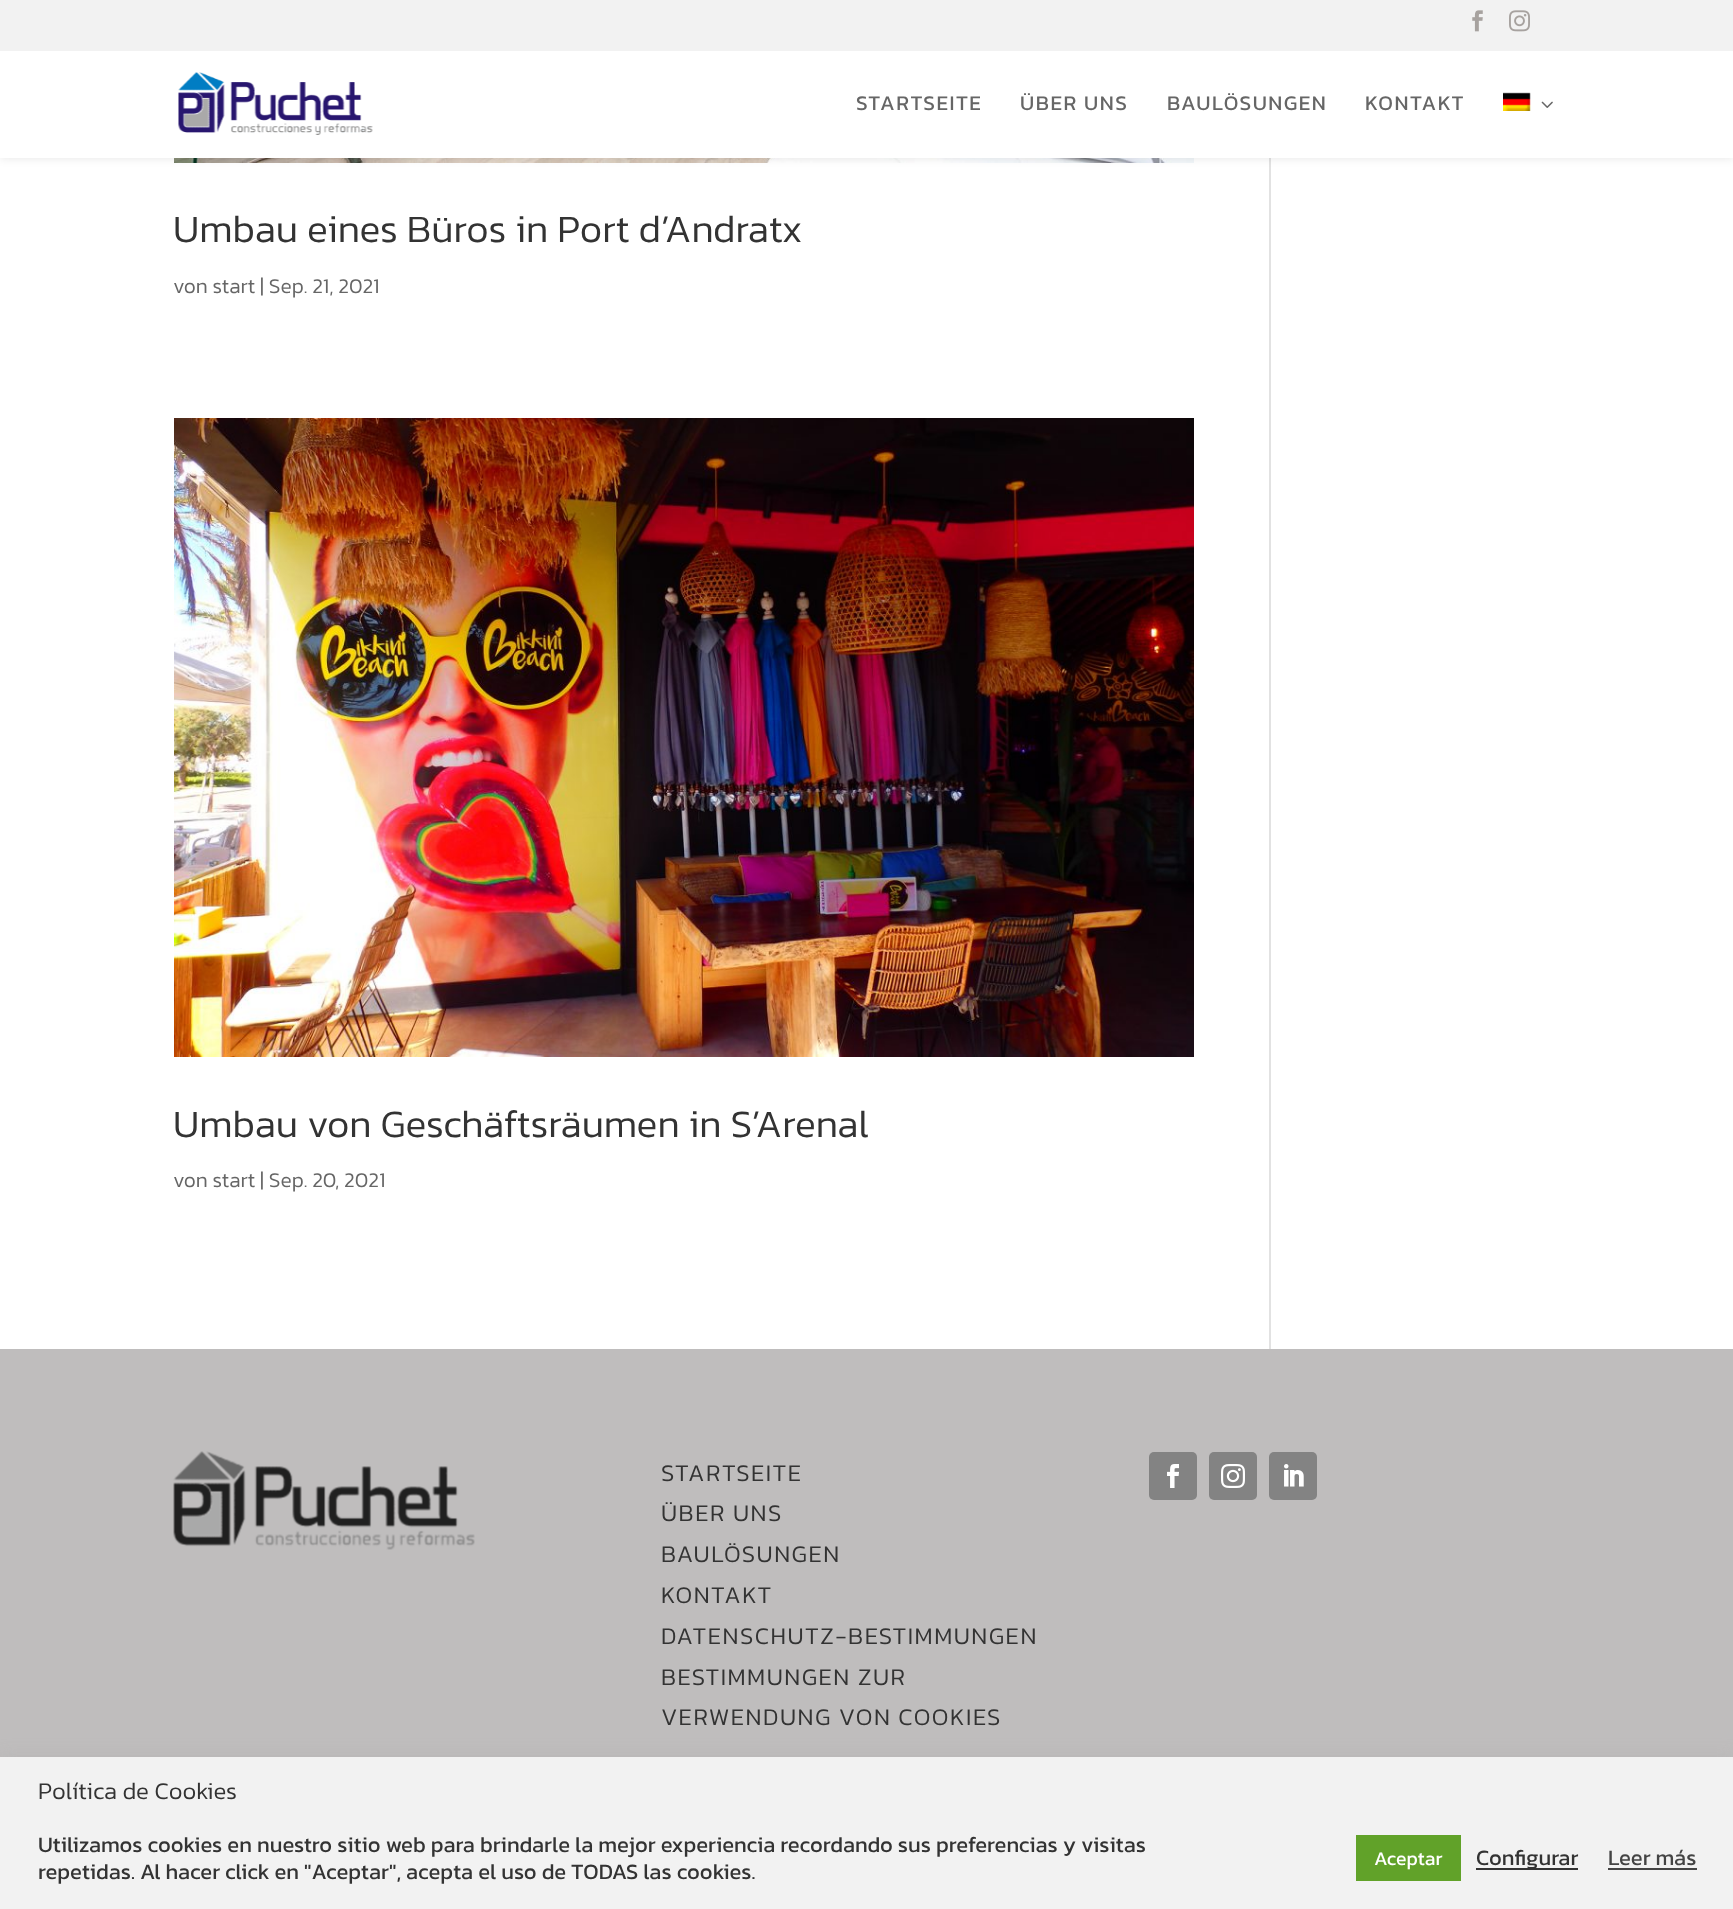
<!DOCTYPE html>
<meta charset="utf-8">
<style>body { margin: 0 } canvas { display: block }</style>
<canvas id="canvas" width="1733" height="1909"></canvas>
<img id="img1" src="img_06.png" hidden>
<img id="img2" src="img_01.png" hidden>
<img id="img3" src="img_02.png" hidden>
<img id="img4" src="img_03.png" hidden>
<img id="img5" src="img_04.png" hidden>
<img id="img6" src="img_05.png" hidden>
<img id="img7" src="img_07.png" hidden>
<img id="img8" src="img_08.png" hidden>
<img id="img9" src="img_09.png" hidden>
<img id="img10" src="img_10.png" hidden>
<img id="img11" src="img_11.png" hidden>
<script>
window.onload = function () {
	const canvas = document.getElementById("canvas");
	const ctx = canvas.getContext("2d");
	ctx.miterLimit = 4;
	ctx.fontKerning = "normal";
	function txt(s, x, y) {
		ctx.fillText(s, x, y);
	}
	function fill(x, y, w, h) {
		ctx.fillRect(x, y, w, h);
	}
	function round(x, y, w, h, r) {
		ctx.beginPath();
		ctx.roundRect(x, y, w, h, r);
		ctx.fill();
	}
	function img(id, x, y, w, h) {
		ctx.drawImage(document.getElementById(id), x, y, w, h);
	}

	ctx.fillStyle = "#FFFFFF";
	fill(0, 0, 1733, 1909);
	img("img1", 174, 158, 1020, 5);
	ctx.fillStyle = "#E2E2E2";
	fill(1269, 158, 2, 1191);
	ctx.fillStyle = "rgba(0, 0, 0, 0.1)";
	ctx.filter = "blur(5px)";
	ctx.beginPath();
	ctx.rect(0, 51, 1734, 107);
	ctx.fill();
	ctx.filter = "none";
	ctx.fillStyle = "#F2F2F2";
	fill(0, 0, 1733, 51);
	img("img2", 1472, 10, 11, 22);
	img("img3", 1509, 10, 21, 22);
	ctx.fillStyle = "#FFFFFF";
	fill(0, 51, 1733, 107);
	img("img4", 178, 72, 195, 63);
	img("img5", 1503, 92, 28, 19);
	img("img6", 1541, 101, 12, 7);
	img("img7", 174, 418, 1020, 639);
	ctx.fillStyle = "#BFBDBD";
	fill(0, 1349, 1733, 408);
	img("img8", 173, 1451, 302, 99);
	ctx.fillStyle = "#838383";
	round(1149, 1452, 48, 48, 5);
	img("img9", 1167, 1464, 12, 24);
	round(1209, 1452, 48, 48, 5);
	img("img10", 1221, 1464, 24, 24);
	round(1269, 1452, 48, 48, 5);
	img("img11", 1284, 1464, 20, 23);
	ctx.fillStyle = "rgba(172, 171, 171, 0.3)";
	ctx.filter = "blur(7.5px)";
	ctx.beginPath();
	ctx.rect(0, 1755, 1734, 153);
	ctx.fill();
	ctx.filter = "none";
	ctx.fillStyle = "#F2F2F2";
	fill(0, 1757, 1733, 152);
	ctx.fillStyle = "#61A229";
	fill(1356, 1835, 105, 46);
	ctx.fillStyle = "#333333";
	fill(1476, 1868, 102, 2);
	ctx.fillStyle = "#444444";
	fill(1608, 1868, 89, 2);
	ctx.letterSpacing = "1.5px";
	ctx.font = "21px Kanit";
	ctx.fillStyle = "#666666";
	txt("STARTSEITE", 856, 110);
	txt("ÜBER UNS", 1020, 110);
	txt("BAULÖSUNGEN", 1167, 110);
	txt("KONTAKT", 1365, 110);
	ctx.letterSpacing = "0px";
	ctx.font = "300 39px Kanit";
	ctx.fillStyle = "#333333";
	txt("Umbau eines Büros in Port d’Andratx", 173, 242);
	ctx.font = "300 21px Kanit";
	ctx.fillStyle = "#666666";
	txt("von start | Sep. 21, 2021", 173, 293);
	ctx.font = "300 39px Kanit";
	ctx.fillStyle = "#333333";
	txt("Umbau von Geschäftsräumen in S’Arenal", 173, 1137);
	ctx.font = "300 21px Kanit";
	ctx.fillStyle = "#666666";
	txt("von start | Sep. 20, 2021", 173, 1187);
	ctx.letterSpacing = "1.5px";
	ctx.font = "300 24px Kanit";
	ctx.fillStyle = "#333333";
	txt("STARTSEITE", 661, 1481);
	txt("ÜBER UNS", 661, 1521);
	txt("BAULÖSUNGEN", 661, 1562);
	txt("KONTAKT", 661, 1603);
	txt("DATENSCHUTZ-BESTIMMUNGEN", 661, 1644);
	txt("BESTIMMUNGEN ZUR", 661, 1685);
	txt("VERWENDUNG VON COOKIES", 661, 1725);
	ctx.letterSpacing = "0px";
	txt("Política de Cookies", 38, 1799);
	ctx.font = "22px Kanit";
	txt("Utilizamos cookies en nuestro sitio web para brindarle la mejor experiencia recordando sus preferencias y visitas", 38, 1852);
	txt("repetidas. Al hacer click en \"Aceptar\", acepta el uso de TODAS las cookies.", 38, 1879);
	ctx.font = "19.5px Kanit";
	ctx.fillStyle = "#FFFFFF";
	txt("Aceptar", 1374, 1865);
	ctx.font = "22px Kanit";
	ctx.fillStyle = "#333333";
	txt("Configurar", 1476, 1865);
	ctx.fillStyle = "#444444";
	txt("Leer más", 1608, 1865);
};
</script>
